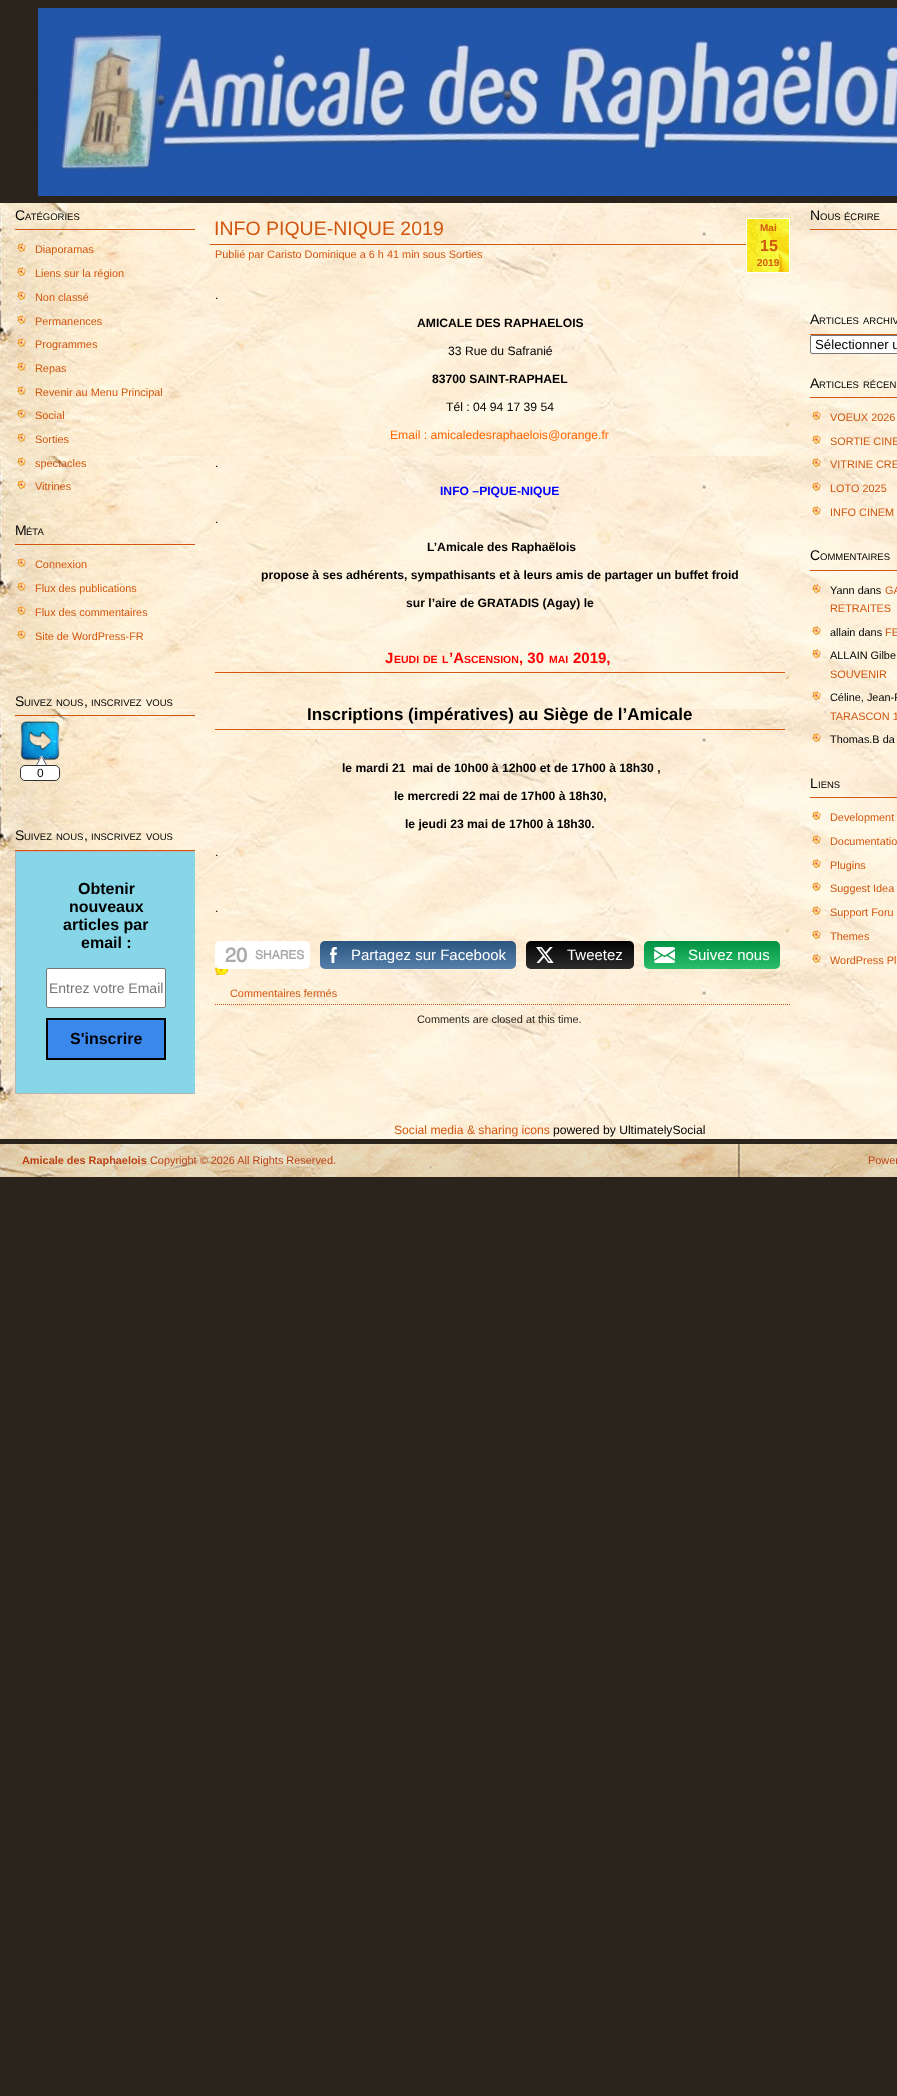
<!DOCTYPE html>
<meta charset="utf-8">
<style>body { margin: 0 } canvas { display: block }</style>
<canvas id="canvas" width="897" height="2096"></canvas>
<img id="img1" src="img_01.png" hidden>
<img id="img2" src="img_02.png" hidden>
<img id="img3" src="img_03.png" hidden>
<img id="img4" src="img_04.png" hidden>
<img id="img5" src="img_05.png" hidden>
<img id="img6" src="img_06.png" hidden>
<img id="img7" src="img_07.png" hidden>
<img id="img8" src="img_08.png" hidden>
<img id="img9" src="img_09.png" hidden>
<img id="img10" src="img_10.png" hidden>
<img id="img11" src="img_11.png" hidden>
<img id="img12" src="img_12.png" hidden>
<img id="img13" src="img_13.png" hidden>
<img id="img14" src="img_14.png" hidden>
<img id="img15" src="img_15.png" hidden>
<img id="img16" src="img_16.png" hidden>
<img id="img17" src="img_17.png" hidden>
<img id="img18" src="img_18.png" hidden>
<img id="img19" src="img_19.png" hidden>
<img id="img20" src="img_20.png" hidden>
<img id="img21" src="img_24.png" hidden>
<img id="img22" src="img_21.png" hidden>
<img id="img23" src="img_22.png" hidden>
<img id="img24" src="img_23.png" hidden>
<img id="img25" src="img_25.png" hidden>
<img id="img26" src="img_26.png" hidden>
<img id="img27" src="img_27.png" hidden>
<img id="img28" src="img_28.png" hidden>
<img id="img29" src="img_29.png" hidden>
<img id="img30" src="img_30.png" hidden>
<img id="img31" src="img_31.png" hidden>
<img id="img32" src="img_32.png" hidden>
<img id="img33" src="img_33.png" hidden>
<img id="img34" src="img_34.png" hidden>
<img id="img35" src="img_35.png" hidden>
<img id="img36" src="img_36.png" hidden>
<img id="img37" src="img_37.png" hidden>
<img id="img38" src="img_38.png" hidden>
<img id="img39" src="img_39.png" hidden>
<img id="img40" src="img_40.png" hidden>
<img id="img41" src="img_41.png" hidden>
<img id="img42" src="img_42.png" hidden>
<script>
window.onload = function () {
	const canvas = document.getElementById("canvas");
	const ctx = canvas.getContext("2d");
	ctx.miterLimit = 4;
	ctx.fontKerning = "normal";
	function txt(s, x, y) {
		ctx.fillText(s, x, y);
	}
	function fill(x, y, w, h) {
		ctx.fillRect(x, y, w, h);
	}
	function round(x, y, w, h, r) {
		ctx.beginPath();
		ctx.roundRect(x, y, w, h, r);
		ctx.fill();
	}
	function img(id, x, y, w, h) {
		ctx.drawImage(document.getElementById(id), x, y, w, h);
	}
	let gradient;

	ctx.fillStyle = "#2B241C";
	fill(0, 0, 897, 2096);
	img("img1", 38, 8, 859, 188);
	img("img2", 0, 203, 897, 936);
	ctx.fillStyle = "#D05710";
	fill(15, 229, 180, 1);
	img("img3", 17, 243, 9, 9);
	img("img4", 17, 267, 9, 9);
	img("img5", 17, 291, 9, 9);
	img("img6", 17, 315, 9, 9);
	img("img7", 17, 338, 9, 9);
	img("img8", 17, 362, 9, 9);
	img("img9", 17, 386, 9, 9);
	img("img10", 17, 409, 9, 9);
	img("img11", 17, 433, 9, 9);
	img("img12", 17, 457, 9, 9);
	img("img13", 17, 480, 9, 9);
	fill(15, 544, 180, 1);
	img("img14", 17, 558, 9, 9);
	img("img15", 17, 582, 9, 9);
	img("img16", 17, 606, 9, 9);
	img("img17", 17, 630, 9, 9);
	fill(15, 715, 180, 1);
	img("img18", 20, 721, 40, 40);
	ctx.fillStyle = "#FFFFFF";
	ctx.beginPath();
	ctx.roundRect(20.5, 765.5, 39, 15, 4.5);
	ctx.fill();
	ctx.strokeStyle = "#333333";
	ctx.stroke();
	img("img19", 36, 756, 12, 9);
	ctx.fillStyle = "#D05710";
	fill(15, 850, 180, 1);
	ctx.fillStyle = "#86D6E8";
	fill(16, 852, 179, 241);
	ctx.save();
	ctx.beginPath();
	ctx.rect(15, 828, 180, 266);
	ctx.clip();
	ctx.strokeStyle = "#B5B5B5";
	ctx.strokeRect(15.5, 851.5, 181, 242);
	ctx.restore();
	ctx.fillStyle = "#FFFFFF";
	ctx.beginPath();
	ctx.roundRect(46.5, 968.5, 119, 39, 1.5);
	ctx.fill();
	ctx.strokeStyle = "#767676";
	ctx.stroke();
	ctx.fillStyle = "#3B88ED";
	ctx.beginPath();
	ctx.rect(47, 1019, 118, 40);
	ctx.fill();
	ctx.strokeStyle = "#000000";
	ctx.lineWidth = 2;
	ctx.stroke();
	ctx.fillStyle = "#D05710";
	fill(210, 244, 536, 1);
	img("img20", 747, 219, 42, 53);
	ctx.strokeStyle = "#FFFFFF";
	ctx.lineWidth = 1;
	ctx.strokeRect(746.5, 218.5, 43, 54);
	fill(215, 672, 570, 1);
	fill(215, 729, 570, 1);
	img("img21", 215, 967, 13, 8);
	ctx.fillStyle = "#FFFFFF";
	round(215, 941, 95, 28, 5);
	ctx.fillStyle = "#336699";
	round(320, 941, 196, 28, 5);
	gradient = ctx.createLinearGradient(418, 941, 418, 969);
	gradient.addColorStop(0, "rgba(0, 0, 0, 0.17)");
	gradient.addColorStop(1, "rgba(255, 255, 255, 0.17)");
	ctx.fillStyle = gradient;
	round(320, 941, 196, 28, 5);
	img("img22", 330, 947, 7, 16);
	ctx.fillStyle = "#020202";
	round(526, 941, 108, 28, 5);
	gradient = ctx.createLinearGradient(580, 941, 580, 969);
	gradient.addColorStop(0, "rgba(0, 0, 0, 0.17)");
	gradient.addColorStop(1, "rgba(255, 255, 255, 0.17)");
	ctx.fillStyle = gradient;
	round(526, 941, 108, 28, 5);
	img("img23", 536, 947, 18, 16);
	ctx.fillStyle = "#00B04E";
	round(644, 941, 136, 28, 5);
	gradient = ctx.createLinearGradient(712, 941, 712, 969);
	gradient.addColorStop(0, "rgba(0, 0, 0, 0.17)");
	gradient.addColorStop(1, "rgba(255, 255, 255, 0.17)");
	ctx.fillStyle = gradient;
	round(644, 941, 136, 28, 5);
	img("img24", 654, 947, 21, 16);
	ctx.beginPath();
	ctx.moveTo(215, 1004.5);
	ctx.lineTo(790, 1004.5);
	ctx.strokeStyle = "#D05710";
	ctx.setLineDash([1, 1]);
	ctx.stroke();
	ctx.fillStyle = "#D05710";
	fill(810, 229, 87, 1);
	fill(810, 334, 87, 1);
	ctx.fillStyle = "#FFFFFF";
	ctx.beginPath();
	ctx.roundRect(810.5, 335.5, 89, 18, 1.5);
	ctx.fill();
	ctx.strokeStyle = "#767676";
	ctx.setLineDash([]);
	ctx.stroke();
	ctx.fillStyle = "#D05710";
	fill(810, 397, 87, 1);
	img("img25", 812, 411, 9, 9);
	img("img26", 812, 435, 9, 9);
	img("img27", 812, 458, 9, 9);
	img("img28", 812, 482, 9, 9);
	img("img29", 812, 506, 9, 9);
	fill(810, 570, 87, 1);
	img("img30", 812, 584, 9, 9);
	img("img31", 812, 626, 9, 9);
	img("img32", 812, 649, 9, 9);
	img("img33", 812, 691, 9, 9);
	img("img34", 812, 733, 9, 9);
	fill(810, 797, 87, 1);
	img("img35", 812, 811, 9, 9);
	img("img36", 812, 835, 9, 9);
	img("img37", 812, 859, 9, 9);
	img("img38", 812, 882, 9, 9);
	img("img39", 812, 906, 9, 9);
	img("img40", 812, 930, 9, 9);
	img("img41", 812, 954, 9, 9);
	img("img42", 0, 1144, 897, 33);
	ctx.font = "14px Liberation Sans";
	ctx.fillStyle = "#000000";
	txt("C", 15, 220);
	ctx.font = "9.5px Liberation Sans";
	txt("ATÉGORIES", 25, 220);
	ctx.font = "10.9px Liberation Sans";
	ctx.fillStyle = "#D05710";
	txt("Diaporamas", 35, 253);
	txt("Liens sur la région", 35, 277);
	txt("Non classé", 35, 301);
	txt("Permanences", 35, 325);
	txt("Programmes", 35, 348);
	txt("Repas", 35, 372);
	txt("Revenir au Menu Principal", 35, 396);
	txt("Social", 35, 419);
	txt("Sorties", 35, 443);
	txt("spectacles", 35, 467);
	txt("Vitrines", 35, 490);
	ctx.font = "14px Liberation Sans";
	ctx.fillStyle = "#000000";
	txt("M", 15, 535);
	ctx.font = "9.5px Liberation Sans";
	txt("ÉTA", 26, 535);
	ctx.font = "10.9px Liberation Sans";
	ctx.fillStyle = "#D05710";
	txt("Connexion", 35, 568);
	txt("Flux des publications", 35, 592);
	txt("Flux des commentaires", 35, 616);
	txt("Site de WordPress-FR", 35, 640);
	ctx.font = "14px Liberation Sans";
	ctx.fillStyle = "#000000";
	txt("S", 15, 706);
	ctx.font = "9.5px Liberation Sans";
	txt("UIVEZ", 24, 706);
	txt("NOUS", 56, 706);
	ctx.font = "14px Liberation Sans";
	txt(",", 84, 706);
	ctx.font = "9.5px Liberation Sans";
	txt("INSCRIVEZ", 91, 706);
	txt("VOUS", 146, 706);
	ctx.font = "12px Liberation Sans";
	txt("0", 37, 777);
	ctx.font = "14px Liberation Sans";
	txt("S", 15, 840);
	ctx.font = "9.5px Liberation Sans";
	txt("UIVEZ", 24, 840);
	txt("NOUS", 56, 840);
	ctx.font = "14px Liberation Sans";
	txt(",", 84, 840);
	ctx.font = "9.5px Liberation Sans";
	txt("INSCRIVEZ", 91, 840);
	txt("VOUS", 146, 840);
	ctx.font = "bold 16px Liberation Sans";
	txt("Obtenir", 78, 894);
	txt("nouveaux", 69, 912);
	txt("articles par", 63, 930);
	txt("email :", 81, 948);
	ctx.font = "14px Liberation Sans";
	ctx.fillStyle = "#757575";
	txt("Entrez votre Email", 49, 993);
	ctx.font = "bold 16px Liberation Sans";
	ctx.fillStyle = "#000000";
	txt("S'inscrire", 70, 1044);
	ctx.font = "19.5px Liberation Sans";
	ctx.fillStyle = "#D05710";
	txt("INFO PIQUE-NIQUE 2019", 214, 235);
	ctx.font = "bold 10px Liberation Sans";
	txt("Mai", 760, 231);
	ctx.font = "bold 16px Liberation Sans";
	txt("15", 760, 251);
	ctx.font = "bold 10px Liberation Sans";
	txt("2019", 757, 266);
	ctx.font = "10.9px Liberation Sans";
	txt("Publié par Caristo Dominique a 6 h 41 min sous Sorties", 215, 258);
	ctx.font = "12.15px Liberation Sans";
	ctx.fillStyle = "#000000";
	txt(".", 215, 299);
	ctx.font = "bold 12.15px Liberation Sans";
	txt("AMICALE DES RAPHAELOIS", 417, 327);
	ctx.font = "12.15px Liberation Sans";
	txt("33 Rue du Safranié", 448, 355);
	ctx.font = "bold 12.15px Liberation Sans";
	txt("83700 SAINT-RAPHAEL", 432, 383);
	ctx.font = "12.15px Liberation Sans";
	txt("Tél : 04 94 17 39 54", 446, 411);
	ctx.fillStyle = "#FF6600";
	txt("Email : amicaledesraphaelois@orange.fr", 390, 439);
	ctx.fillStyle = "#000000";
	txt(".", 215, 467);
	ctx.font = "bold 12.15px Liberation Sans";
	ctx.fillStyle = "#0000FF";
	txt("INFO –PIQUE-NIQUE", 440, 495);
	ctx.font = "12.15px Liberation Sans";
	ctx.fillStyle = "#000000";
	txt(".", 215, 523);
	ctx.font = "bold 12.15px Liberation Sans";
	txt("L’Amicale des Raphaëlois", 427, 551);
	txt("propose à ses adhérents, sympathisants et à leurs amis de partager un buffet froid", 261, 579);
	txt("sur l’aire de GRATADIS (Agay) le", 406, 607);
	ctx.font = "bold 15px Liberation Sans";
	ctx.fillStyle = "#FF0000";
	txt("J", 385, 663);
	ctx.font = "bold 10.5px Liberation Sans";
	txt("EUDI", 394, 663);
	txt("DE", 423, 663);
	txt("L", 442, 663);
	ctx.font = "bold 15px Liberation Sans";
	txt("’A", 449, 663);
	ctx.font = "bold 10.5px Liberation Sans";
	txt("SCENSION", 464, 663);
	ctx.font = "bold 15px Liberation Sans";
	txt(", 30", 519, 663);
	ctx.font = "bold 10.5px Liberation Sans";
	txt("MAI", 549, 663);
	ctx.font = "bold 15px Liberation Sans";
	txt("2019,", 573, 663);
	ctx.font = "bold 17px Liberation Sans";
	ctx.fillStyle = "#000000";
	txt("Inscriptions (impératives) au Siège de l’Amicale", 307, 720);
	ctx.font = "bold 12.15px Liberation Sans";
	txt("le mardi 21  mai de 10h00 à 12h00 et de 17h00 à 18h30 ,", 342, 772);
	txt("le mercredi 22 mai de 17h00 à 18h30,", 394, 800);
	txt("le jeudi 23 mai de 17h00 à 18h30.", 405, 828);
	ctx.font = "12.15px Liberation Sans";
	txt(".", 215, 856);
	txt(".", 215, 912);
	ctx.font = "bold 20px Helvetica";
	ctx.fillStyle = "#AAAAAA";
	txt("20", 225, 962);
	ctx.font = "bold 12px Helvetica";
	txt("SHARES", 255, 959);
	ctx.font = "15px Liberation Sans";
	ctx.fillStyle = "#FFFFFF";
	txt("Partagez sur Facebook", 351, 960);
	txt("Tweetez", 567, 960);
	txt("Suivez nous", 688, 960);
	ctx.font = "10.9px Liberation Sans";
	ctx.fillStyle = "#D05710";
	txt("Commentaires fermés", 230, 997);
	ctx.fillStyle = "#2A231B";
	txt("Comments are closed at this time.", 417, 1023);
	ctx.font = "14px Liberation Sans";
	ctx.fillStyle = "#000000";
	txt("N", 810, 220);
	ctx.font = "9.5px Liberation Sans";
	txt("OUS", 820, 220);
	txt("ÉCRIRE", 844, 220);
	ctx.font = "14px Liberation Sans";
	txt("A", 810, 324);
	ctx.font = "9.5px Liberation Sans";
	txt("RTICLES", 819, 324);
	txt("ARCHIV", 863, 324);
	ctx.font = "13.25px Liberation Sans";
	txt("Sélectionner u", 815, 349);
	ctx.font = "14px Liberation Sans";
	txt("A", 810, 388);
	ctx.font = "9.5px Liberation Sans";
	txt("RTICLES", 819, 388);
	txt("RÉCEN", 863, 388);
	ctx.font = "10.9px Liberation Sans";
	ctx.fillStyle = "#D05710";
	txt("VOEUX 2026", 830, 421);
	txt("SORTIE CINE", 830, 445);
	txt("VITRINE CRE", 830, 468);
	txt("LOTO 2025", 830, 492);
	txt("INFO CINEM", 830, 516);
	ctx.font = "14px Liberation Sans";
	ctx.fillStyle = "#000000";
	txt("C", 810, 560);
	ctx.font = "9.5px Liberation Sans";
	txt("OMMENTAIRES", 820, 560);
	ctx.font = "10.9px Liberation Sans";
	txt("Yann dans", 830, 594);
	ctx.fillStyle = "#D05710";
	txt("GA", 885, 594);
	txt("RETRAITES", 830, 612);
	ctx.fillStyle = "#000000";
	txt("allain dans", 830, 636);
	ctx.fillStyle = "#D05710";
	txt("FE", 885, 636);
	ctx.fillStyle = "#000000";
	txt("ALLAIN Gilbe", 830, 659);
	ctx.fillStyle = "#D05710";
	txt("SOUVENIR", 830, 678);
	ctx.fillStyle = "#000000";
	txt("Céline, Jean-F", 830, 701);
	ctx.fillStyle = "#D05710";
	txt("TARASCON 1", 830, 720);
	ctx.fillStyle = "#000000";
	txt("Thomas.B da", 830, 743);
	ctx.font = "14px Liberation Sans";
	txt("L", 810, 788);
	ctx.font = "9.5px Liberation Sans";
	txt("IENS", 818, 788);
	ctx.font = "10.9px Liberation Sans";
	ctx.fillStyle = "#D05710";
	txt("Development", 830, 821);
	txt("Documentatio", 830, 845);
	txt("Plugins", 830, 869);
	txt("Suggest Idea", 830, 892);
	txt("Support Foru", 830, 916);
	txt("Themes", 830, 940);
	txt("WordPress Pl", 830, 964);
	ctx.font = "12.15px Liberation Sans";
	txt("Social media & sharing icons", 394, 1134);
	ctx.fillStyle = "#000000";
	txt("powered by UltimatelySocial", 553, 1134);
	ctx.font = "bold 10.9px Liberation Sans";
	ctx.fillStyle = "#BA4114";
	txt("Amicale des Raphaelois", 22, 1164);
	ctx.font = "10.9px Liberation Sans";
	txt("Copyright © 2026 All Rights Reserved.", 150, 1164);
	txt("Power", 868, 1164);
};
</script>
